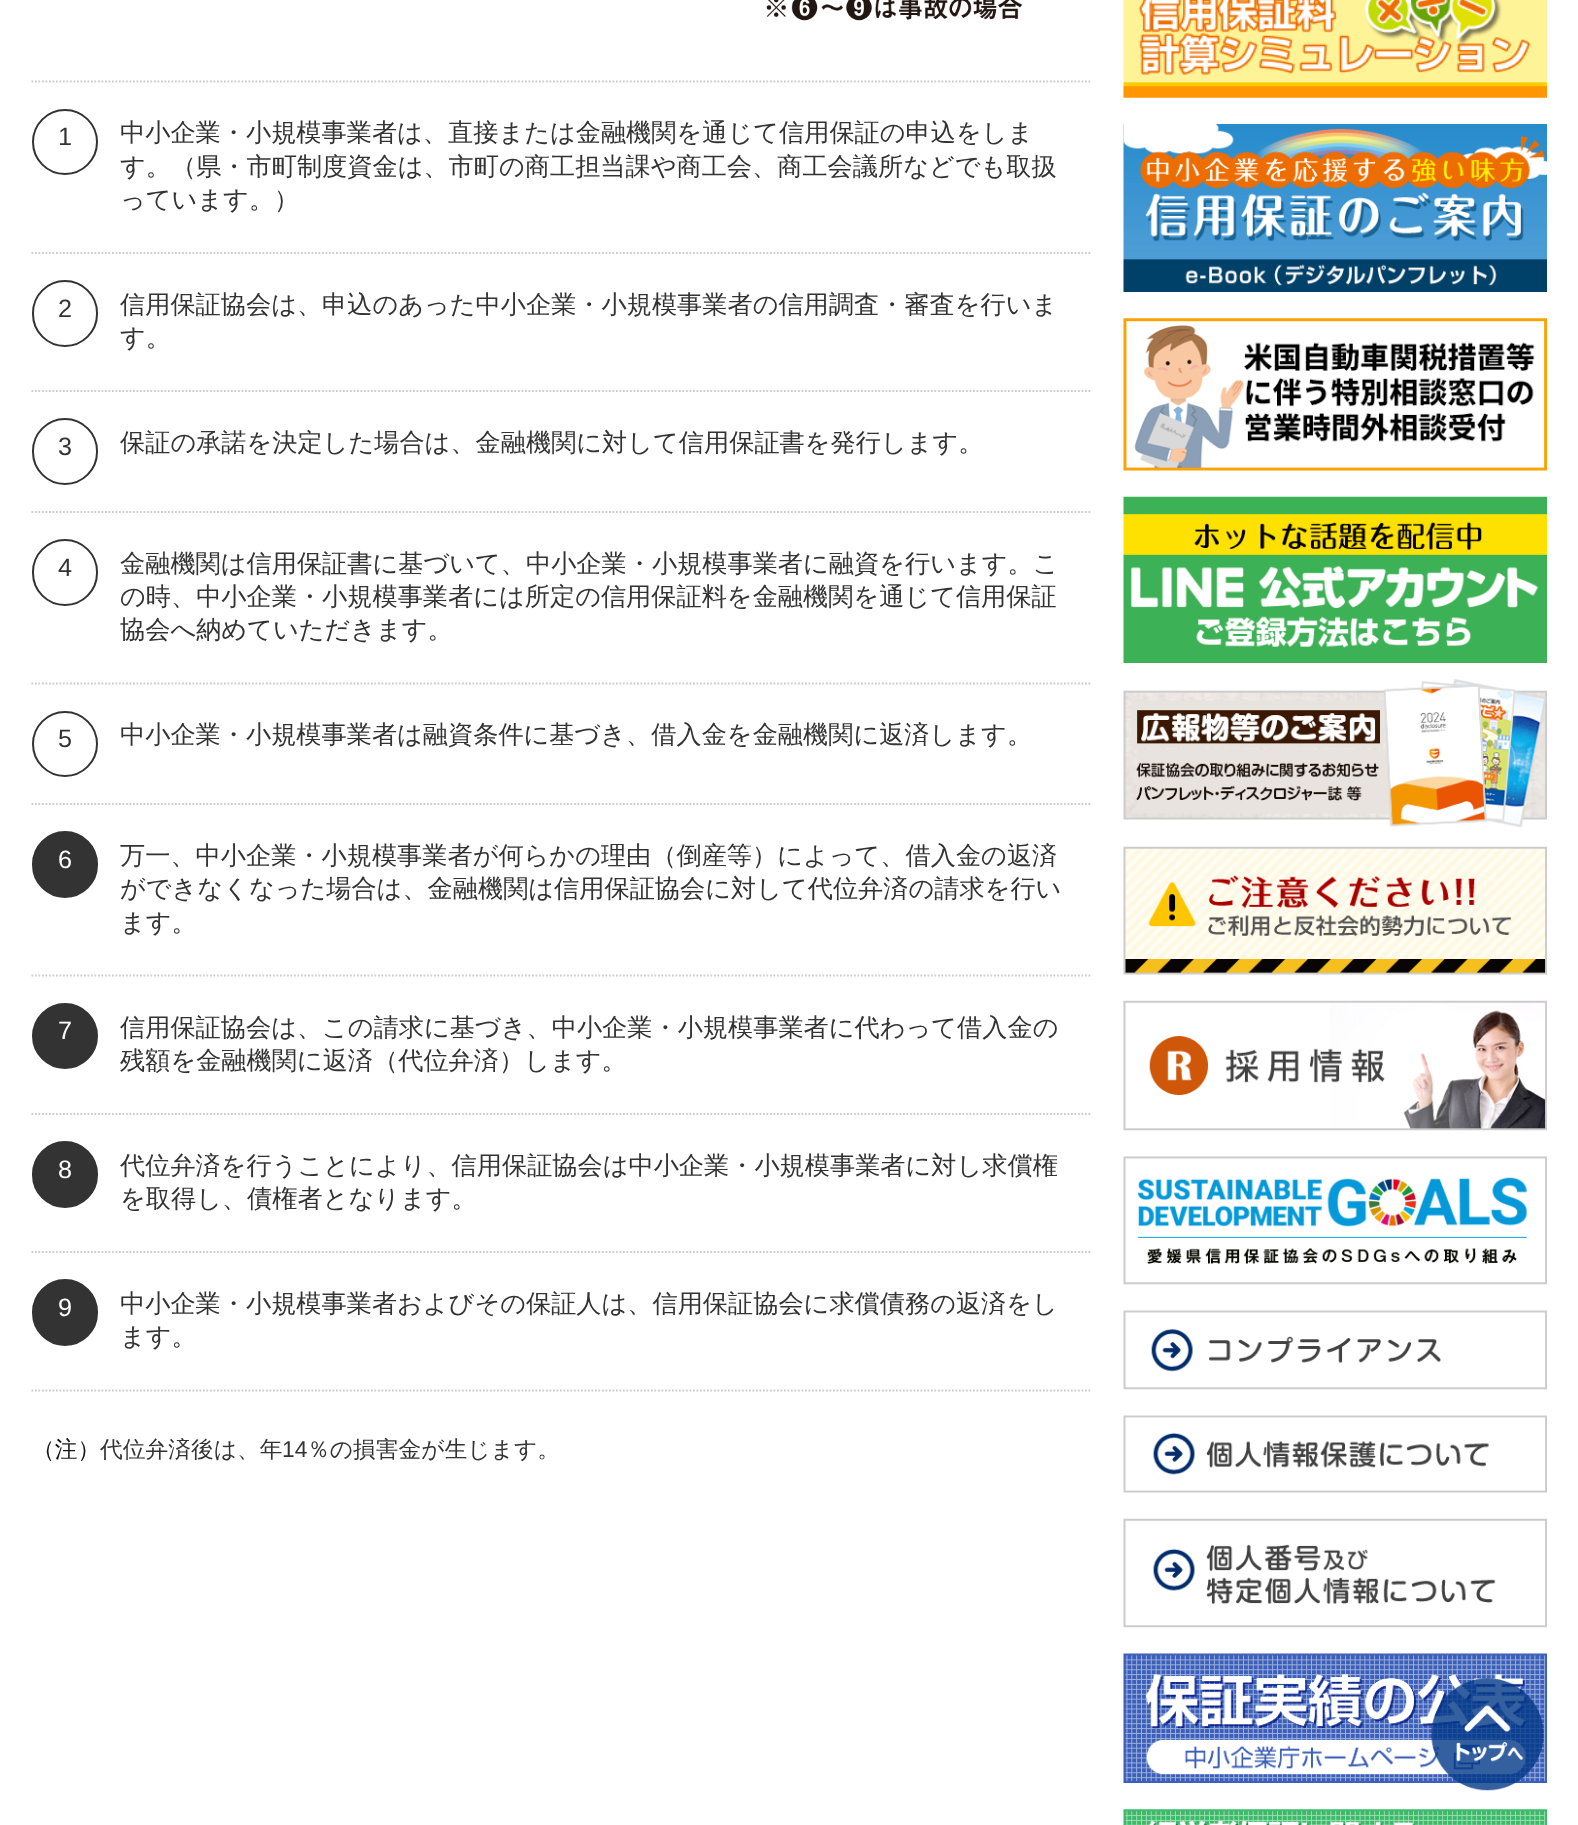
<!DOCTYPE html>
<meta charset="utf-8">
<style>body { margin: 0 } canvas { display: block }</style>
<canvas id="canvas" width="1578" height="1825"></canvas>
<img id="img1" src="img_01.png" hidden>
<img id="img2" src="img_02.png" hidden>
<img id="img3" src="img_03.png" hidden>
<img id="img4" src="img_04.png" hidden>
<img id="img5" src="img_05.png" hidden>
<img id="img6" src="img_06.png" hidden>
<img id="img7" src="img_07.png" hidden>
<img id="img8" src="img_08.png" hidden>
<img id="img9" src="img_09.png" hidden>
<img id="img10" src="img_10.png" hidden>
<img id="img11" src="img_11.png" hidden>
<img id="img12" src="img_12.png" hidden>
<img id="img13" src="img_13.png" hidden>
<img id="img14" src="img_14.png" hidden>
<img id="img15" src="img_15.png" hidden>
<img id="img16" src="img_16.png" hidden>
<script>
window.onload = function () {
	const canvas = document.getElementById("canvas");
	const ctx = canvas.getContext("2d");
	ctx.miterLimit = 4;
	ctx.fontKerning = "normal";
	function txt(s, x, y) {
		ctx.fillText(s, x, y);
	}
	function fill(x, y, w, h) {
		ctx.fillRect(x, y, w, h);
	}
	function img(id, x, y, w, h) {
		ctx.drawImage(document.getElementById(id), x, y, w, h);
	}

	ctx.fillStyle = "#FFFFFF";
	fill(0, 0, 1578, 1825);
	img("img1", 766, 0, 257, 21);
	ctx.beginPath();
	ctx.moveTo(31.5, 81.5);
	ctx.lineTo(1092, 81.5);
	ctx.strokeStyle = "#CCCCCC";
	ctx.lineWidth = 1.8;
	ctx.setLineDash([1.75, 1.75]);
	ctx.stroke();
	ctx.beginPath();
	ctx.moveTo(31.5, 253);
	ctx.lineTo(1092, 253);
	ctx.stroke();
	ctx.beginPath();
	ctx.arc(65, 142, 32, 0, Math.PI * 2);
	ctx.strokeStyle = "#333333";
	ctx.lineWidth = 2;
	ctx.setLineDash([]);
	ctx.stroke();
	ctx.beginPath();
	ctx.moveTo(31.5, 391);
	ctx.lineTo(1092, 391);
	ctx.strokeStyle = "#CCCCCC";
	ctx.lineWidth = 1.8;
	ctx.setLineDash([1.75, 1.75]);
	ctx.stroke();
	ctx.beginPath();
	ctx.roundRect(33, 281, 64, 65, 32);
	ctx.strokeStyle = "#333333";
	ctx.lineWidth = 2;
	ctx.setLineDash([]);
	ctx.stroke();
	ctx.beginPath();
	ctx.moveTo(31.5, 512);
	ctx.lineTo(1092, 512);
	ctx.strokeStyle = "#CCCCCC";
	ctx.lineWidth = 1.8;
	ctx.setLineDash([1.75, 1.75]);
	ctx.stroke();
	ctx.beginPath();
	ctx.roundRect(33, 419, 64, 65, 32);
	ctx.strokeStyle = "#333333";
	ctx.lineWidth = 2;
	ctx.setLineDash([]);
	ctx.stroke();
	ctx.beginPath();
	ctx.moveTo(31.5, 683.5);
	ctx.lineTo(1092, 683.5);
	ctx.strokeStyle = "#CCCCCC";
	ctx.lineWidth = 1.8;
	ctx.setLineDash([1.75, 1.75]);
	ctx.stroke();
	ctx.beginPath();
	ctx.roundRect(33, 540, 64, 65, 32);
	ctx.strokeStyle = "#333333";
	ctx.lineWidth = 2;
	ctx.setLineDash([]);
	ctx.stroke();
	ctx.beginPath();
	ctx.moveTo(31.5, 804);
	ctx.lineTo(1092, 804);
	ctx.strokeStyle = "#CCCCCC";
	ctx.lineWidth = 1.8;
	ctx.setLineDash([1.75, 1.75]);
	ctx.stroke();
	ctx.beginPath();
	ctx.arc(65, 744, 32, 0, Math.PI * 2);
	ctx.strokeStyle = "#333333";
	ctx.lineWidth = 2;
	ctx.setLineDash([]);
	ctx.stroke();
	ctx.beginPath();
	ctx.moveTo(31.5, 975.5);
	ctx.lineTo(1092, 975.5);
	ctx.strokeStyle = "#CCCCCC";
	ctx.lineWidth = 1.8;
	ctx.setLineDash([1.75, 1.75]);
	ctx.stroke();
	ctx.fillStyle = "#333333";
	ctx.beginPath();
	ctx.roundRect(33, 832, 64, 65, 32);
	ctx.fill();
	ctx.strokeStyle = "#333333";
	ctx.lineWidth = 2;
	ctx.setLineDash([]);
	ctx.stroke();
	ctx.beginPath();
	ctx.moveTo(31.5, 1114);
	ctx.lineTo(1092, 1114);
	ctx.strokeStyle = "#CCCCCC";
	ctx.lineWidth = 1.8;
	ctx.setLineDash([1.75, 1.75]);
	ctx.stroke();
	ctx.beginPath();
	ctx.arc(65, 1036, 32, 0, Math.PI * 2);
	ctx.fill();
	ctx.strokeStyle = "#333333";
	ctx.lineWidth = 2;
	ctx.setLineDash([]);
	ctx.stroke();
	ctx.beginPath();
	ctx.moveTo(31.5, 1252);
	ctx.lineTo(1092, 1252);
	ctx.strokeStyle = "#CCCCCC";
	ctx.lineWidth = 1.8;
	ctx.setLineDash([1.75, 1.75]);
	ctx.stroke();
	ctx.beginPath();
	ctx.roundRect(33, 1142, 64, 65, 32);
	ctx.fill();
	ctx.strokeStyle = "#333333";
	ctx.lineWidth = 2;
	ctx.setLineDash([]);
	ctx.stroke();
	ctx.beginPath();
	ctx.moveTo(31.5, 1390.5);
	ctx.lineTo(1092, 1390.5);
	ctx.strokeStyle = "#CCCCCC";
	ctx.lineWidth = 1.8;
	ctx.setLineDash([1.75, 1.75]);
	ctx.stroke();
	ctx.beginPath();
	ctx.roundRect(33, 1280, 64, 65, 32);
	ctx.fill();
	ctx.strokeStyle = "#333333";
	ctx.lineWidth = 2;
	ctx.setLineDash([]);
	ctx.stroke();
	img("img2", 1123, 0, 424, 98);
	img("img3", 1123, 124, 424, 168);
	img("img4", 1123, 124, 424, 162);
	img("img5", 1123, 318, 424, 153);
	img("img6", 1123, 496, 424, 167);
	img("img7", 1123, 679, 424, 149);
	img("img8", 1123, 846, 424, 129);
	img("img9", 1123, 1000, 424, 131);
	img("img10", 1123, 1156, 424, 129);
	img("img11", 1123, 1310, 424, 80);
	img("img12", 1123, 1415, 424, 78);
	img("img13", 1123, 1518, 424, 110);
	img("img14", 1123, 1653, 424, 130);
	img("img15", 1123, 1809, 424, 16);
	img("img16", 1431, 1678, 113, 113);
	ctx.font = "25.2px Liberation Sans";
	txt("1", 58, 145);
	ctx.font = "500 25.2px WenQuanYi Zen Hei";
	txt("中小企業・小規模事業者は、直接または金融機関を通じて信用保証の申込をしま", 120, 141);
	txt("す。（県・市町制度資金は、市町の商工担当課や商工会、商工会議所などでも取扱", 120, 175);
	txt("っています。）", 120, 208);
	ctx.font = "25.2px Liberation Sans";
	txt("2", 58, 317);
	ctx.font = "500 25.2px WenQuanYi Zen Hei";
	txt("信用保証協会は、申込のあった中小企業・小規模事業者の信用調査・審査を行いま", 120, 313);
	txt("す。", 120, 346);
	ctx.font = "25.2px Liberation Sans";
	txt("3", 58, 455);
	ctx.font = "500 25.2px WenQuanYi Zen Hei";
	txt("保証の承諾を決定した場合は、金融機関に対して信用保証書を発行します。", 120, 451);
	ctx.font = "25.2px Liberation Sans";
	txt("4", 58, 576);
	ctx.font = "500 25.2px WenQuanYi Zen Hei";
	txt("金融機関は信用保証書に基づいて、中小企業・小規模事業者に融資を行います。こ", 120, 572);
	txt("の時、中小企業・小規模事業者には所定の信用保証料を金融機関を通じて信用保証", 120, 605);
	txt("協会へ納めていただきます。", 120, 638);
	ctx.font = "25.2px Liberation Sans";
	txt("5", 58, 747);
	ctx.font = "500 25.2px WenQuanYi Zen Hei";
	txt("中小企業・小規模事業者は融資条件に基づき、借入金を金融機関に返済します。", 120, 743);
	ctx.font = "25.2px Liberation Sans";
	ctx.fillStyle = "#FFFFFF";
	txt("6", 58, 868);
	ctx.font = "500 25.2px WenQuanYi Zen Hei";
	ctx.fillStyle = "#333333";
	txt("万一、中小企業・小規模事業者が何らかの理由（倒産等）によって、借入金の返済", 120, 864);
	txt("ができなくなった場合は、金融機関は信用保証協会に対して代位弁済の請求を行い", 120, 897);
	txt("ます。", 120, 931);
	ctx.font = "25.2px Liberation Sans";
	ctx.fillStyle = "#FFFFFF";
	txt("7", 58, 1039);
	ctx.font = "500 25.2px WenQuanYi Zen Hei";
	ctx.fillStyle = "#333333";
	txt("信用保証協会は、この請求に基づき、中小企業・小規模事業者に代わって借入金の", 120, 1036);
	txt("残額を金融機関に返済（代位弁済）します。", 120, 1069);
	ctx.font = "25.2px Liberation Sans";
	ctx.fillStyle = "#FFFFFF";
	txt("8", 58, 1178);
	ctx.font = "500 25.2px WenQuanYi Zen Hei";
	ctx.fillStyle = "#333333";
	txt("代位弁済を行うことにより、信用保証協会は中小企業・小規模事業者に対し求償権", 120, 1174);
	txt("を取得し、債権者となります。", 120, 1207);
	ctx.font = "25.2px Liberation Sans";
	ctx.fillStyle = "#FFFFFF";
	txt("9", 58, 1316);
	ctx.font = "500 25.2px WenQuanYi Zen Hei";
	ctx.fillStyle = "#333333";
	txt("中小企業・小規模事業者およびその保証人は、信用保証協会に求償債務の返済をし", 120, 1312);
	txt("ます。", 120, 1345);
	ctx.font = "500 22.75px WenQuanYi Zen Hei";
	ctx.fillStyle = "#141414";
	txt("（注）", 32, 1457);
	ctx.fillStyle = "#333333";
	txt("代位弁済後は、年", 100, 1457);
	ctx.font = "22.75px Liberation Sans";
	txt("14", 282, 1457);
	ctx.font = "500 22.75px WenQuanYi Zen Hei";
	txt("％の損害金が生じます。", 307, 1457);
};
</script>
